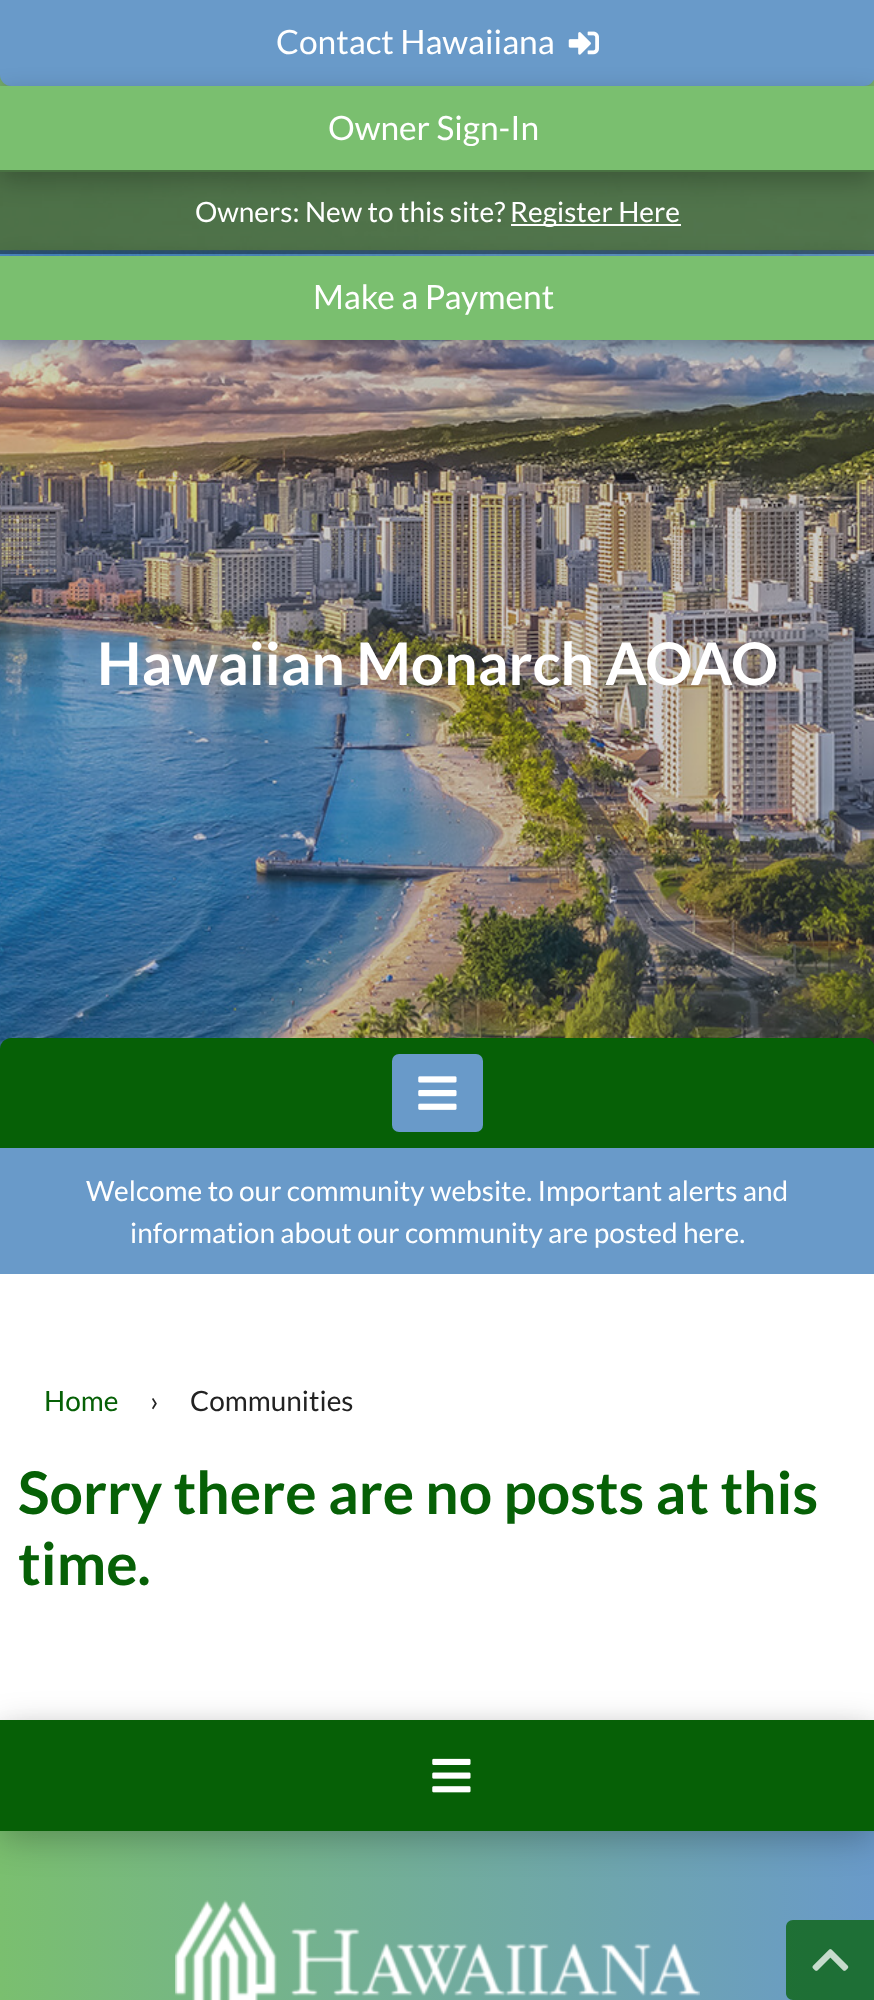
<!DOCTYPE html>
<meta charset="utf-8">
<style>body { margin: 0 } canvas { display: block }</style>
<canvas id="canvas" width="874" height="2000"></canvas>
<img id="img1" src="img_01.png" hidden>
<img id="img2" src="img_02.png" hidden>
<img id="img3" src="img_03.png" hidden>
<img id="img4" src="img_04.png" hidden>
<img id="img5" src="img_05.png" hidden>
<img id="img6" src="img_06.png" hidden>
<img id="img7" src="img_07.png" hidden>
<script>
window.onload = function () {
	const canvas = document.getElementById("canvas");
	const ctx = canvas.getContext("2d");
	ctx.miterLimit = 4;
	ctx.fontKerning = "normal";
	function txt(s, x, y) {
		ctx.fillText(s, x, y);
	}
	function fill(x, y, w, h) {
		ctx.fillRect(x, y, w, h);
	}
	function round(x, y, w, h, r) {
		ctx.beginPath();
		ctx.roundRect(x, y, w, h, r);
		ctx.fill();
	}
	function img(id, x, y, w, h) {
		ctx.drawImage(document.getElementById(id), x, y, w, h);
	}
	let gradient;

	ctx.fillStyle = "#FFFFFF";
	fill(0, 0, 874, 2000);
	img("img1", 0, 75, 874, 176);
	ctx.fillStyle = "rgba(0, 0, 0, 0.25)";
	ctx.filter = "blur(13px)";
	ctx.beginPath();
	ctx.roundRect(0, 9, 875, 86, 11);
	ctx.fill();
	ctx.filter = "none";
	ctx.fillStyle = "#699AC9";
	ctx.beginPath();
	ctx.moveTo(0, 0);
	ctx.lineTo(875, 0);
	ctx.lineTo(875, 75);
	ctx.bezierCurveTo(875, 81, 870, 86, 864, 86);
	ctx.lineTo(11, 86);
	ctx.bezierCurveTo(5, 86, 0, 81, 0, 75);
	ctx.closePath();
	ctx.fill();
	img("img2", 568, 31, 31, 24);
	ctx.fillStyle = "rgba(0, 0, 0, 0.25)";
	ctx.filter = "blur(13px)";
	ctx.beginPath();
	ctx.rect(0, 95, 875, 85);
	ctx.fill();
	ctx.filter = "none";
	ctx.fillStyle = "#7ABF6F";
	fill(0, 86, 874, 86);
	img("img3", 0, 250, 874, 799);
	ctx.fillStyle = "rgba(78, 75, 72, 0.25)";
	fill(0, 250, 874, 799);
	ctx.fillStyle = "rgba(0, 0, 0, 0.25)";
	ctx.filter = "blur(13px)";
	ctx.beginPath();
	ctx.rect(0, 264, 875, 84);
	ctx.fill();
	ctx.filter = "none";
	ctx.fillStyle = "rgba(0, 0, 0, 0.4)";
	fill(0, 170, 874, 84);
	ctx.fillStyle = "#FFFFFF";
	fill(511, 224, 170, 2);
	ctx.fillStyle = "#7ABF6F";
	fill(0, 256, 874, 84);
	ctx.fillStyle = "#066006";
	ctx.beginPath();
	ctx.moveTo(11, 1038);
	ctx.lineTo(864, 1038);
	ctx.bezierCurveTo(870, 1038, 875, 1043, 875, 1049);
	ctx.lineTo(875, 1148);
	ctx.lineTo(0, 1148);
	ctx.lineTo(0, 1049);
	ctx.bezierCurveTo(0, 1043, 5, 1038, 11, 1038);
	ctx.closePath();
	ctx.fill();
	ctx.fillStyle = "#699AC9";
	round(392, 1054, 91, 78, 7);
	img("img4", 418, 1076, 39, 34);
	fill(0, 1148, 874, 126);
	ctx.fillStyle = "rgba(0, 0, 0, 0.35)";
	ctx.filter = "blur(17.5px)";
	ctx.beginPath();
	ctx.roundRect(0, 1747, 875, 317, 11);
	ctx.fill();
	ctx.filter = "none";
	gradient = ctx.createLinearGradient(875, 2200, 0, 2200);
	gradient.addColorStop(0, "#699AC9");
	gradient.addColorStop(1, "#7ABF6F");
	ctx.fillStyle = gradient;
	fill(0, 1831, 874, 169);
	ctx.fillStyle = "rgba(6, 96, 6, 0.75)";
	ctx.beginPath();
	ctx.moveTo(793, 1920);
	ctx.lineTo(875, 1920);
	ctx.lineTo(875, 2000);
	ctx.lineTo(793, 2000);
	ctx.bezierCurveTo(789, 2000, 786, 1997, 786, 1993);
	ctx.lineTo(786, 1927);
	ctx.bezierCurveTo(786, 1923, 789, 1920, 793, 1920);
	ctx.closePath();
	ctx.fill();
	img("img5", 812, 1949, 37, 22);
	ctx.fillStyle = "rgba(0, 0, 0, 0.25)";
	ctx.filter = "blur(17.5px)";
	ctx.beginPath();
	ctx.rect(0, 1729, 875, 110);
	ctx.fill();
	ctx.filter = "none";
	ctx.fillStyle = "#066006";
	fill(0, 1720, 874, 111);
	img("img6", 432, 1758, 39, 35);
	img("img7", 175, 1900, 525, 100);
	ctx.font = "33.5px Lato";
	ctx.fillStyle = "#FFFFFF";
	txt("Contact Hawaiiana", 276, 54);
	txt("Owner Sign-In", 328, 140);
	ctx.font = "28px Lato";
	txt("Owners: New to this site?", 195, 222);
	txt("Register Here", 510, 222);
	ctx.font = "33.5px Lato";
	txt("Make a Payment", 313, 309);
	ctx.font = "bold 58.75px Lato";
	txt("Hawaiian Monarch AOAO", 97, 685);
	ctx.font = "28px Lato";
	txt("Welcome to our community website. Important alerts and", 86, 1201);
	txt("information about our community are posted here.", 130, 1243);
	ctx.fillStyle = "#066006";
	txt("Home", 44, 1411);
	ctx.fillStyle = "#222222";
	txt("›", 150, 1411);
	txt("Communities", 190, 1411);
	ctx.font = "bold 58.75px Lato";
	ctx.fillStyle = "#066006";
	txt("Sorry there are no posts at this", 18, 1514);
	txt("time.", 18, 1585);
};
</script>
